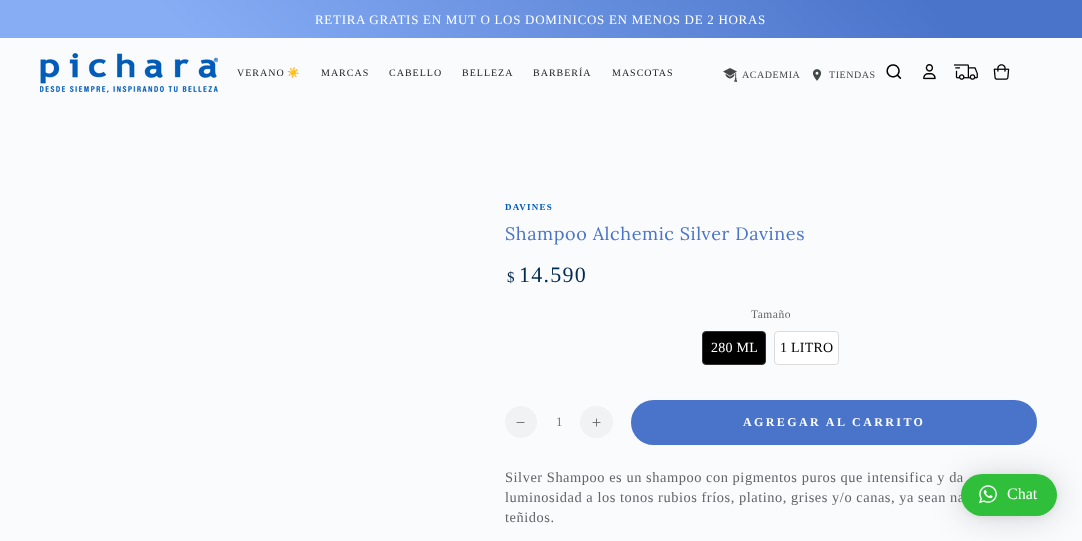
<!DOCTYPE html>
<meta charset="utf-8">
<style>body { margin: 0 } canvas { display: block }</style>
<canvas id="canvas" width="1082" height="541"></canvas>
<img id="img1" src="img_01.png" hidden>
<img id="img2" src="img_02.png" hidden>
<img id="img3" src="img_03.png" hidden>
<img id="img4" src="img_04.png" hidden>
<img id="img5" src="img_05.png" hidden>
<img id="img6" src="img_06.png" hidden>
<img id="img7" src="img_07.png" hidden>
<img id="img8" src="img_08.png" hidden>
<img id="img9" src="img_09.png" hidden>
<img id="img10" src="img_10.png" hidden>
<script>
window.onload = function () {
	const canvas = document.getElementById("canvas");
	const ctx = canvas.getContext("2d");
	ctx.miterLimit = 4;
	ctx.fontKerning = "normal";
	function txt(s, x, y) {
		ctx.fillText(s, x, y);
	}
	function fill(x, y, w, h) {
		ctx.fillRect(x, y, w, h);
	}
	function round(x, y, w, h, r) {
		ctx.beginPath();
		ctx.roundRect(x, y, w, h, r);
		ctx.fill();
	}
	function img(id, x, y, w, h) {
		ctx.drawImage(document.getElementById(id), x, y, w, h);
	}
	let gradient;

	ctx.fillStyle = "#FAFBFD";
	fill(0, 0, 1082, 541);
	gradient = ctx.createLinearGradient(849, -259, 233, 297);
	gradient.addColorStop(0.14, "#4A74CA");
	gradient.addColorStop(0.83, "#87ADF5");
	ctx.fillStyle = gradient;
	fill(0, 0, 1082, 38);
	img("img1", 40, 53, 178, 40);
	img("img2", 723, 68, 14, 14);
	img("img3", 812, 69, 10, 12);
	img("img4", 886, 64, 16, 15);
	img("img5", 923, 64, 13, 16);
	img("img6", 953, 64, 25, 16);
	img("img7", 993, 64, 17, 16);
	ctx.fillStyle = "#000000";
	ctx.beginPath();
	ctx.roundRect(702.5, 331.5, 63, 33, 3.5);
	ctx.fill();
	ctx.strokeStyle = "#323232";
	ctx.stroke();
	ctx.fillStyle = "#FFFFFF";
	ctx.beginPath();
	ctx.roundRect(774.5, 331.5, 64, 33, 3.5);
	ctx.fill();
	ctx.strokeStyle = "#DCDCDC";
	ctx.stroke();
	ctx.fillStyle = "#F1F2F4";
	ctx.beginPath();
	ctx.arc(521, 422, 16, 0, Math.PI * 2);
	ctx.fill();
	img("img8", 516, 422, 9, 1);
	round(580, 406, 33, 32, 16);
	img("img9", 592, 418, 9, 9);
	ctx.fillStyle = "#4A74CA";
	ctx.beginPath();
	ctx.roundRect(632, 401, 404, 43, 21.5);
	ctx.fill();
	ctx.strokeStyle = "#4A74CA";
	ctx.lineWidth = 2;
	ctx.stroke();
	ctx.fillStyle = "rgba(0, 0, 0, 0.16)";
	ctx.filter = "blur(16px)";
	ctx.beginPath();
	ctx.roundRect(961, 476, 96, 42, 21);
	ctx.fill();
	ctx.filter = "none";
	ctx.fillStyle = "rgba(0, 0, 0, 0.06)";
	ctx.filter = "blur(3px)";
	ctx.beginPath();
	ctx.roundRect(961, 475, 96, 42, 21);
	ctx.fill();
	ctx.filter = "none";
	ctx.letterSpacing = "0.7px";
	ctx.font = "13px Liberation Serif";
	ctx.fillStyle = "#FFFFFF";
	txt("RETIRA GRATIS EN MUT O LOS DOMINICOS EN MENOS DE 2 HORAS", 315, 24);
	ctx.letterSpacing = "1px";
	ctx.font = "10px Liberation Serif";
	ctx.fillStyle = "#1E1E1E";
	txt("VERANO", 237, 76);
	ctx.font = "10px Noto Color Emoji";
	txt("☀️", 287, 76);
	ctx.font = "10px Liberation Serif";
	txt("MARCAS", 321, 76);
	txt("CABELLO", 389, 76);
	txt("BELLEZA", 462, 76);
	txt("BARBERÍA", 533, 76);
	txt("MASCOTAS", 612, 76);
	ctx.letterSpacing = "0.55px";
	ctx.fillStyle = "#444946";
	txt("ACADEMIA", 742, 78);
	txt("TIENDAS", 829, 78);
	ctx.letterSpacing = "1.25px";
	ctx.font = "bold 9px Liberation Serif";
	ctx.fillStyle = "#005CB9";
	txt("DAVINES", 505, 210);
	ctx.letterSpacing = "0.6px";
	ctx.font = "18px Lora";
	ctx.fillStyle = "#4A74CA";
	txt("Shampoo Alchemic Silver Davines", 505, 240);
	ctx.letterSpacing = "1.25px";
	ctx.font = "15px Liberation Serif";
	ctx.fillStyle = "#032A51";
	txt("$", 507, 282);
	ctx.font = "22px Liberation Serif";
	txt("14.590", 519, 282);
	ctx.letterSpacing = "0.5px";
	ctx.font = "11.5px Liberation Serif";
	ctx.fillStyle = "#626468";
	txt("Tamaño", 751, 318);
	ctx.letterSpacing = "0.25px";
	ctx.font = "14px Liberation Serif";
	ctx.fillStyle = "#FFFFFF";
	txt("280 ML", 711, 352);
	ctx.fillStyle = "#000000";
	txt("1 LITRO", 780, 352);
	ctx.letterSpacing = "0px";
	ctx.font = "13px Liberation Serif";
	ctx.fillStyle = "#797B7E";
	txt("1", 556, 426);
	ctx.letterSpacing = "2.4px";
	ctx.font = "bold 12px Liberation Serif";
	ctx.fillStyle = "#FFFFFF";
	txt("AGREGAR AL CARRITO", 743, 426);
	ctx.letterSpacing = "0.55px";
	ctx.font = "14.4px Liberation Serif";
	ctx.fillStyle = "#626468";
	txt("Silver Shampoo es un shampoo con pigmentos puros que intensifica y da", 505, 482);
	txt("luminosidad a los tonos rubios fríos, platino, grises y/o canas, ya sean na", 505, 502);
	txt("teñidos.", 505, 522);
	ctx.fillStyle = "#30BF3A";
	round(961, 474, 96, 42, 21);
	img("img10", 979, 485, 18, 19);
	ctx.letterSpacing = "0px";
	ctx.font = "16px Liberation Serif";
	ctx.fillStyle = "#FFFFFF";
	txt("Chat", 1007, 499);
};
</script>
